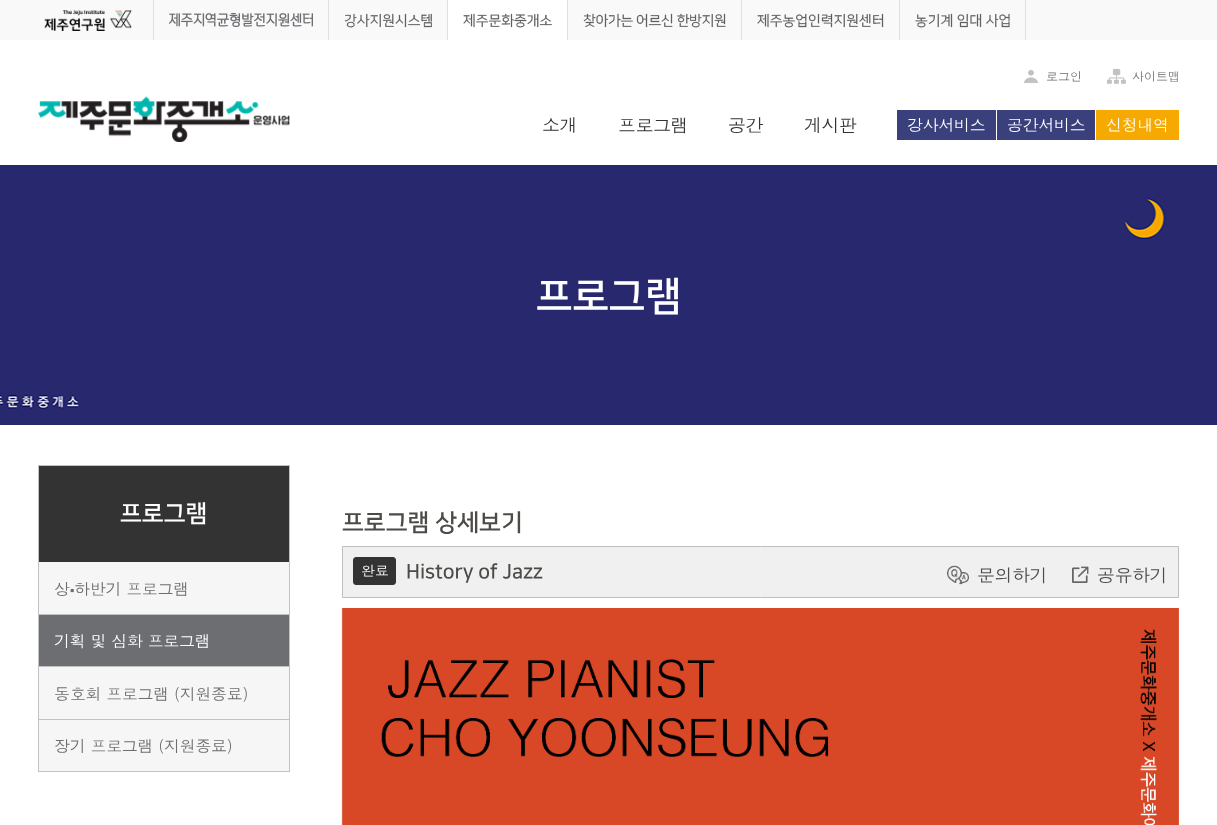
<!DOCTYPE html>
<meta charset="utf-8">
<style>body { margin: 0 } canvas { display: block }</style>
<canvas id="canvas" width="1217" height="825"></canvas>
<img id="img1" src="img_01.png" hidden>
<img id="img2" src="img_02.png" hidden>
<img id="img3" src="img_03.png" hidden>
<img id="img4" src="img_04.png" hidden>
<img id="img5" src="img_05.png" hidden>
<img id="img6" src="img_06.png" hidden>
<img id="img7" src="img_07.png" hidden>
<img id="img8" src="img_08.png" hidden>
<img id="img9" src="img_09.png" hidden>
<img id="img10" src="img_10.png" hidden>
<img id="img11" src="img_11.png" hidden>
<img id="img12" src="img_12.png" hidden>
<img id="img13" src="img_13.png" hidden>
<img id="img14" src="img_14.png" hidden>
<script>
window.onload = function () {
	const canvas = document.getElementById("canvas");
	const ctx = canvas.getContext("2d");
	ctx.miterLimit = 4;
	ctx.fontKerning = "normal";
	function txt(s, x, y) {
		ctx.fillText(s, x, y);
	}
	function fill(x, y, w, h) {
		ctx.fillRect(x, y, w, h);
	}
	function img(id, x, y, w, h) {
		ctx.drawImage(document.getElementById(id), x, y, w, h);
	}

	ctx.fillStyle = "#FFFFFF";
	fill(0, 0, 1217, 825);
	ctx.fillStyle = "#F9F9F9";
	fill(0, 0, 1217, 40);
	ctx.fillStyle = "#E0E0E0";
	fill(153, 0, 1, 40);
	img("img1", 44, 10, 88, 21);
	fill(328, 0, 1, 40);
	img("img2", 169, 13, 144, 14);
	fill(447, 0, 1, 40);
	img("img3", 344, 13, 88, 15);
	ctx.fillStyle = "#FFFFFF";
	fill(448, 0, 119, 40);
	ctx.fillStyle = "#E0E0E0";
	fill(567, 0, 1, 40);
	img("img4", 463, 13, 89, 15);
	fill(741, 0, 1, 40);
	img("img5", 583, 13, 143, 15);
	fill(899, 0, 1, 40);
	img("img6", 757, 13, 127, 15);
	fill(1025, 0, 1, 40);
	img("img7", 915, 13, 95, 15);
	ctx.fillStyle = "#C2C2C2";
	fill(1023, 69, 16, 15);
	img("img8", 1019, 65, 21, 21);
	fill(1106, 68, 20, 17);
	img("img9", 1105, 65, 21, 21);
	img("img10", 38, 96, 252, 46);
	ctx.fillStyle = "#39407C";
	fill(897, 110, 99, 30);
	fill(997, 110, 98, 30);
	ctx.fillStyle = "#F6A900";
	fill(1096, 110, 83, 30);
	img("img11", 0, 165, 1217, 260);
	ctx.strokeStyle = "#C2C2C2";
	ctx.strokeRect(38.5, 465.5, 251, 306);
	ctx.fillStyle = "#333333";
	fill(39, 466, 250, 96);
	ctx.fillStyle = "#F6F6F6";
	fill(39, 562, 250, 52);
	ctx.fillStyle = "#C2C2C2";
	fill(39, 614, 250, 1);
	ctx.fillStyle = "#6D6E71";
	fill(39, 615, 250, 51);
	ctx.fillStyle = "#C2C2C2";
	fill(39, 666, 250, 1);
	ctx.fillStyle = "#F6F6F6";
	fill(39, 667, 250, 52);
	ctx.fillStyle = "#C2C2C2";
	fill(39, 719, 250, 1);
	ctx.fillStyle = "#F6F6F6";
	fill(39, 720, 250, 51);
	ctx.fillStyle = "#F0F0F0";
	ctx.beginPath();
	ctx.rect(342.5, 546.5, 836, 51);
	ctx.fill();
	ctx.strokeStyle = "#BCBEC0";
	ctx.stroke();
	ctx.fillStyle = "#333333";
	ctx.beginPath();
	ctx.roundRect(353.5, 557.5, 42, 27, 2.5);
	ctx.fill();
	ctx.strokeStyle = "#333333";
	ctx.stroke();
	img("img12", 947, 565, 22, 20);
	img("img13", 1072, 566, 17, 17);
	img("img14", 341, 608, 838, 217);
	ctx.font = "12px Dotum";
	ctx.fillStyle = "#6D6E71";
	txt("로그인", 1046, 81);
	txt("사이트맵", 1132, 81);
	ctx.letterSpacing = "-0.5px";
	ctx.font = "18px Dotum";
	ctx.fillStyle = "#333333";
	txt("소개", 542, 132);
	txt("프로그램", 618, 132);
	txt("공간", 728, 132);
	txt("게시판", 804, 132);
	ctx.letterSpacing = "-0.3px";
	ctx.font = "16px Dotum";
	ctx.fillStyle = "#FFFFFF";
	txt("강사서비스", 907, 131);
	txt("공간서비스", 1007, 131);
	txt("신청내역", 1106, 131);
	ctx.letterSpacing = "0px";
	ctx.font = "bold 40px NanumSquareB";
	txt("프로그램", 536, 309);
	ctx.font = "bold 24px NanumSquareB";
	txt("프로그램", 120, 521);
	ctx.letterSpacing = "-0.3px";
	ctx.font = "16px Dotum";
	ctx.fillStyle = "#6D6E71";
	txt("상", 54, 595);
	ctx.font = "16px FreeSans";
	txt("⬝", 70, 595);
	ctx.font = "16px Dotum";
	txt("하반기 프로그램", 74, 595);
	ctx.fillStyle = "#FFFFFF";
	txt("기획 및 심화 프로그램", 54, 647);
	ctx.fillStyle = "#6D6E71";
	txt("동호회 프로그램 (지원종료)", 54, 700);
	txt("장기 프로그램 (지원종료)", 54, 752);
	ctx.letterSpacing = "0px";
	ctx.font = "bold 24px NanumSquareB";
	ctx.fillStyle = "#4C4B46";
	txt("프로그램 상세보기", 342, 530);
	ctx.font = "14px Dotum";
	ctx.fillStyle = "#FFFFFF";
	txt("완료", 361, 576);
	ctx.font = "bold 20px NanumSquareB";
	ctx.fillStyle = "#4C4B46";
	txt("History of Jazz", 406, 578);
	ctx.letterSpacing = "-0.5px";
	ctx.font = "18px Dotum";
	txt("문의하기", 977, 582);
	txt("공유하기", 1097, 582);
};
</script>
